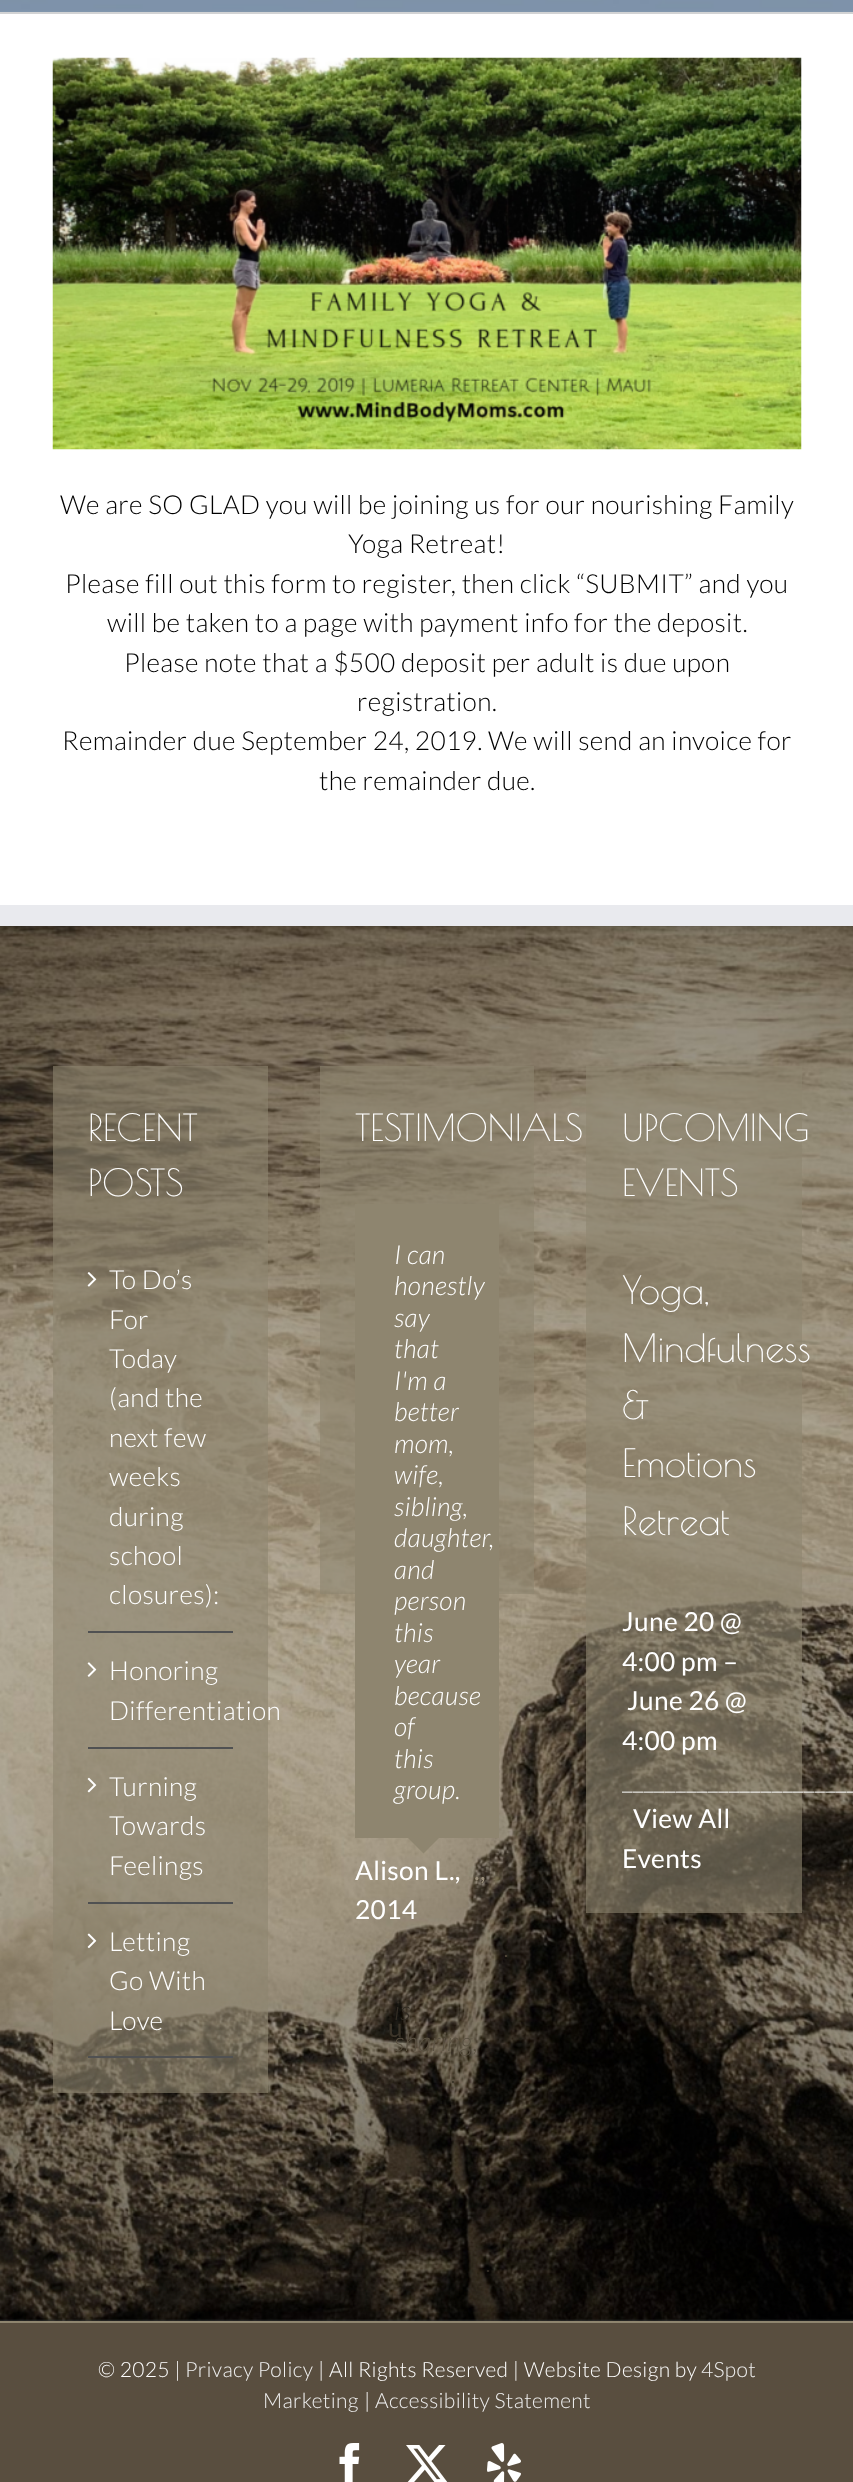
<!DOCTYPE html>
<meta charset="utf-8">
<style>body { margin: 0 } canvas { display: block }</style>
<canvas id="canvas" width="853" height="2482"></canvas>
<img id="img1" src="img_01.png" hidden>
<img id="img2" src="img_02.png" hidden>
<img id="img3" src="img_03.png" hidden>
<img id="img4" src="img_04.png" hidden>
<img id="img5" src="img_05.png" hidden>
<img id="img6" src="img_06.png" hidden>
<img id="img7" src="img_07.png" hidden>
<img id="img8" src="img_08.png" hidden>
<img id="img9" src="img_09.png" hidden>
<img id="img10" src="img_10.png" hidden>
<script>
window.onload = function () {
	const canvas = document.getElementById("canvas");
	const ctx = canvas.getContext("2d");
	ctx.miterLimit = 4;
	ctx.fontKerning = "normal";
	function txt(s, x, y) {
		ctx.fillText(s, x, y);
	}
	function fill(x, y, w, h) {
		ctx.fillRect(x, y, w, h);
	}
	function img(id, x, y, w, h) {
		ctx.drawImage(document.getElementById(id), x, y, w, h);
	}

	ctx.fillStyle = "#FFFFFF";
	fill(0, 0, 853, 2482);
	img("img1", 0, 0, 853, 12);
	ctx.fillStyle = "#D2D3D4";
	fill(0, 12, 853, 2);
	img("img2", 52, 57, 750, 393);
	ctx.fillStyle = "#363839";
	fill(0, 926, 853, 1395);
	img("img3", 0, 926, 853, 1395);
	ctx.fillStyle = "#E9EAEE";
	fill(0, 905, 853, 21);
	ctx.fillStyle = "rgba(142, 133, 111, 0.6)";
	fill(53, 1066, 215, 1027);
	ctx.fillStyle = "#505152";
	fill(88, 1631, 145, 2);
	img("img4", 87, 1272, 10, 15);
	fill(88, 1747, 145, 2);
	img("img5", 87, 1662, 10, 15);
	fill(88, 1902, 145, 2);
	img("img6", 87, 1777, 10, 16);
	fill(88, 2056, 145, 2);
	img("img7", 87, 1933, 10, 16);
	ctx.fillStyle = "rgba(142, 133, 111, 0.6)";
	fill(320, 1066, 214, 528);
	ctx.fillStyle = "#8E856F";
	fill(355, 1204, 144, 634);
	ctx.beginPath();
	ctx.moveTo(407, 1837);
	ctx.lineTo(440, 1837);
	ctx.lineTo(423.5, 1853.5);
	ctx.closePath();
	ctx.fill();
	ctx.fillStyle = "rgba(142, 133, 111, 0.6)";
	fill(586, 1066, 216, 847);
	ctx.fillStyle = "#594E3F";
	fill(0, 2323, 853, 159);
	ctx.fillStyle = "#8E856F";
	fill(0, 2321, 853, 2);
	img("img8", 339, 2443, 21, 39);
	img("img9", 406, 2445, 42, 37);
	img("img10", 487, 2443, 34, 39);
	ctx.letterSpacing = "0.35px";
	ctx.font = "300 26.25px Lato";
	ctx.fillStyle = "#000000";
	txt("We are SO GLAD you will be joining us for our nourishing Family", 60, 514);
	txt("Yoga Retreat!", 348, 553);
	txt("Please fill out this form to register, then click “SUBMIT” and you", 65, 593);
	txt("will be taken to a page with payment info for the deposit.", 107, 632);
	txt("Please note that a $500 deposit per adult is due upon", 124, 672);
	txt("registration.", 357, 711);
	txt("Remainder due September 24, 2019. We will send an invoice for", 62, 750);
	txt("the remainder due.", 319, 790);
	ctx.letterSpacing = "0px";
	ctx.font = "36.75px Poiret One";
	ctx.fillStyle = "#FFFFFF";
	txt("RECENT", 88, 1141);
	txt("POSTS", 88, 1196);
	ctx.letterSpacing = "0.35px";
	ctx.font = "300 26.25px Lato";
	txt("To Do’s", 109, 1289);
	txt("For", 109, 1329);
	txt("Today", 109, 1368);
	txt("(and the", 109, 1407);
	txt("next few", 109, 1447);
	txt("weeks", 109, 1486);
	txt("during", 109, 1526);
	txt("school", 109, 1565);
	txt("closures):", 109, 1604);
	txt("Honoring", 109, 1680);
	txt("Differentiation", 109, 1720);
	txt("Turning", 109, 1796);
	txt("Towards", 109, 1835);
	txt("Feelings", 109, 1875);
	txt("Letting", 109, 1951);
	txt("Go With", 109, 1990);
	txt("Love", 109, 2030);
	ctx.letterSpacing = "0px";
	ctx.font = "36.75px Poiret One";
	txt("TESTIMONIALS", 355, 1141);
	ctx.letterSpacing = "0.35px";
	ctx.font = "italic 300 26.25px Lato";
	txt("I can", 394, 1264);
	txt("honestly", 394, 1295);
	txt("say", 394, 1327);
	txt("that", 394, 1358);
	txt("I'm a", 394, 1390);
	txt("better", 394, 1421);
	txt("mom,", 394, 1453);
	txt("wife,", 394, 1484);
	txt("sibling,", 394, 1516);
	txt("daughter,", 394, 1547);
	txt("and", 394, 1579);
	txt("person", 394, 1610);
	txt("this", 394, 1642);
	txt("year", 394, 1673);
	txt("because", 394, 1705);
	txt("of", 394, 1736);
	txt("this", 394, 1768);
	txt("group.", 394, 1799);
	ctx.font = "26.25px Lato";
	txt("Alison L.,", 355, 1880);
	txt("2014", 355, 1919);
	ctx.fillStyle = "#9A8F7B";
	txt(".,", 474, 1880);
	ctx.font = "italic 300 26.25px Lato";
	ctx.fillStyle = "#514739";
	txt(".", 504, 1957);
	ctx.fillStyle = "#322C24";
	txt("is", 394, 2020);
	ctx.fillStyle = "#5A5142";
	txt("sharing,", 394, 2051);
	ctx.font = "26.25px Lato";
	ctx.fillStyle = "#3B3429";
	txt("u", 388, 2037);
	ctx.font = "italic 300 26.25px Lato";
	ctx.fillStyle = "#322C24";
	txt(".", 486, 2272);
	ctx.fillStyle = "#3B3429";
	txt(".", 451, 2083);
	ctx.letterSpacing = "0px";
	ctx.font = "36.75px Poiret One";
	ctx.fillStyle = "#FFFFFF";
	txt("UPCOMING", 622, 1141);
	txt("EVENTS", 622, 1196);
	ctx.font = "38.5px Poiret One";
	txt("Yoga,", 622, 1304);
	txt("Mindfulness", 622, 1362);
	txt("&", 622, 1419);
	txt("Emotions", 622, 1477);
	txt("Retreat", 622, 1535);
	ctx.letterSpacing = "0.35px";
	ctx.font = "26.25px Lato";
	txt("June 20 @", 622, 1631);
	txt("4:00 pm –", 622, 1671);
	txt("June 26 @", 627, 1710);
	txt("4:00 pm", 622, 1750);
	ctx.font = "300 26.25px Lato";
	txt("______________________", 622, 1789);
	ctx.font = "26.25px Lato";
	txt("View All", 633, 1828);
	txt("Events", 622, 1868);
	ctx.font = "300 21px Lato";
	txt("© 2025 |", 98, 2377);
	ctx.fillStyle = "#EFEFEF";
	txt("Privacy Policy", 185, 2377);
	ctx.fillStyle = "#FFFFFF";
	txt("| All Rights Reserved | Website Design by", 318, 2377);
	ctx.fillStyle = "#EFEFEF";
	txt("4Spot", 701, 2377);
	txt("Marketing", 263, 2408);
	ctx.fillStyle = "#FFFFFF";
	txt("|", 364, 2408);
	ctx.fillStyle = "#EFEFEF";
	txt("Accessibility Statement", 375, 2408);
};
</script>
